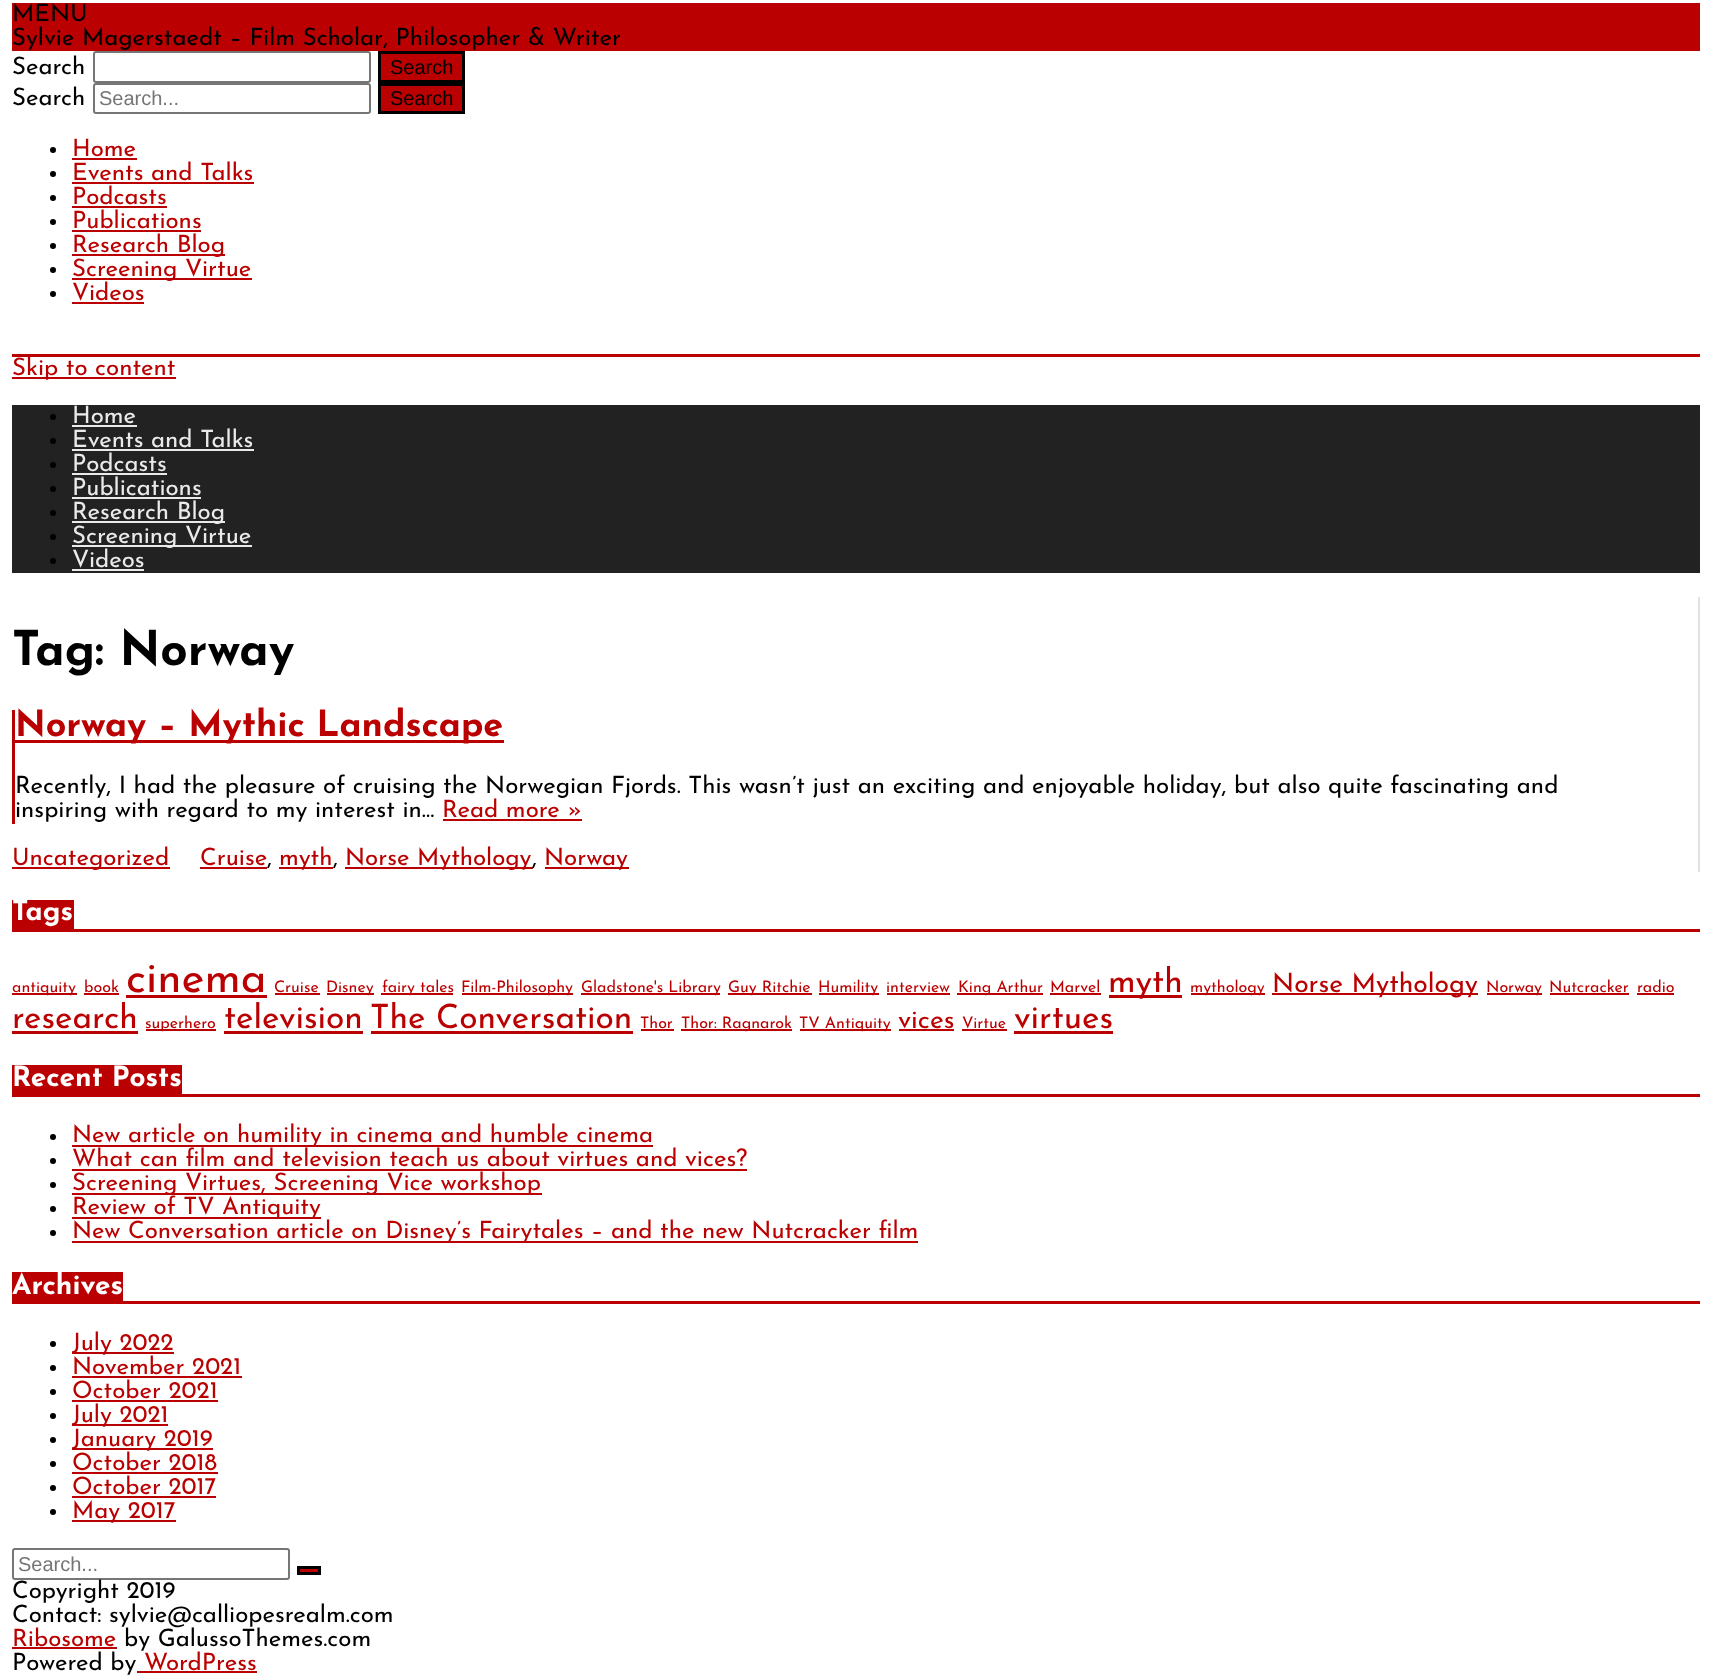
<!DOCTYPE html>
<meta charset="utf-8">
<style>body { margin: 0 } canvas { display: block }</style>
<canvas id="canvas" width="1711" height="1680"></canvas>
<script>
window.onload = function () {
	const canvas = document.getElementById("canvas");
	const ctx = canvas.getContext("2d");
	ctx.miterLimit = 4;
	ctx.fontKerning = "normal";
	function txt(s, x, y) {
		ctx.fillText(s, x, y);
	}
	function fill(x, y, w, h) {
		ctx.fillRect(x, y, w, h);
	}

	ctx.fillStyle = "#FFFFFF";
	fill(0, 0, 1711, 1680);
	ctx.fillStyle = "#BA0000";
	fill(12, 3, 1688, 48);
	ctx.beginPath();
	ctx.roundRect(94, 52, 276, 30, 2);
	ctx.strokeStyle = "#767676";
	ctx.lineWidth = 2;
	ctx.stroke();
	ctx.beginPath();
	ctx.rect(379.5, 52.5, 84, 29);
	ctx.fill();
	ctx.strokeStyle = "#000000";
	ctx.lineWidth = 3;
	ctx.stroke();
	ctx.beginPath();
	ctx.roundRect(94, 84, 276, 29, 2);
	ctx.strokeStyle = "#767676";
	ctx.lineWidth = 2;
	ctx.stroke();
	ctx.beginPath();
	ctx.rect(379.5, 84.5, 84, 28);
	ctx.fill();
	ctx.strokeStyle = "#000000";
	ctx.lineWidth = 3;
	ctx.stroke();
	ctx.fillStyle = "#000000";
	ctx.beginPath();
	ctx.arc(53, 150, 3, 0, Math.PI * 2);
	ctx.fill();
	ctx.fillStyle = "#BA0000";
	fill(72, 158, 65, 2);
	ctx.fillStyle = "#000000";
	ctx.beginPath();
	ctx.arc(53, 174, 3, 0, Math.PI * 2);
	ctx.fill();
	ctx.fillStyle = "#BA0000";
	fill(72, 182, 182, 2);
	ctx.fillStyle = "#000000";
	ctx.beginPath();
	ctx.arc(53, 198, 3, 0, Math.PI * 2);
	ctx.fill();
	ctx.fillStyle = "#BA0000";
	fill(72, 206, 95, 2);
	ctx.fillStyle = "#000000";
	ctx.beginPath();
	ctx.arc(53, 222, 3, 0, Math.PI * 2);
	ctx.fill();
	ctx.fillStyle = "#BA0000";
	fill(72, 230, 129, 2);
	ctx.fillStyle = "#000000";
	ctx.beginPath();
	ctx.arc(53, 246, 3, 0, Math.PI * 2);
	ctx.fill();
	ctx.fillStyle = "#BA0000";
	fill(72, 254, 153, 2);
	ctx.fillStyle = "#000000";
	ctx.beginPath();
	ctx.arc(53, 270, 3, 0, Math.PI * 2);
	ctx.fill();
	ctx.fillStyle = "#BA0000";
	fill(72, 278, 180, 2);
	ctx.fillStyle = "#000000";
	ctx.beginPath();
	ctx.arc(53, 294, 3, 0, Math.PI * 2);
	ctx.fill();
	ctx.fillStyle = "#BA0000";
	fill(72, 302, 72, 2);
	fill(12, 354, 1688, 3);
	fill(12, 377, 164, 2);
	ctx.fillStyle = "#222222";
	fill(12, 405, 1688, 168);
	ctx.fillStyle = "#000000";
	ctx.beginPath();
	ctx.arc(53, 417, 3, 0, Math.PI * 2);
	ctx.fill();
	ctx.fillStyle = "#EAEAEA";
	fill(72, 425, 65, 2);
	ctx.fillStyle = "#000000";
	ctx.beginPath();
	ctx.arc(53, 441, 3, 0, Math.PI * 2);
	ctx.fill();
	ctx.fillStyle = "#EAEAEA";
	fill(72, 449, 182, 2);
	ctx.fillStyle = "#000000";
	ctx.beginPath();
	ctx.arc(53, 465, 3, 0, Math.PI * 2);
	ctx.fill();
	ctx.fillStyle = "#EAEAEA";
	fill(72, 473, 95, 2);
	ctx.fillStyle = "#000000";
	ctx.beginPath();
	ctx.arc(53, 489, 3, 0, Math.PI * 2);
	ctx.fill();
	ctx.fillStyle = "#EAEAEA";
	fill(72, 497, 129, 2);
	ctx.fillStyle = "#000000";
	ctx.beginPath();
	ctx.arc(53, 513, 3, 0, Math.PI * 2);
	ctx.fill();
	ctx.fillStyle = "#EAEAEA";
	fill(72, 521, 153, 2);
	ctx.fillStyle = "#000000";
	ctx.beginPath();
	ctx.arc(53, 537, 3, 0, Math.PI * 2);
	ctx.fill();
	ctx.fillStyle = "#EAEAEA";
	fill(72, 545, 180, 2);
	ctx.fillStyle = "#000000";
	ctx.beginPath();
	ctx.arc(53, 561, 3, 0, Math.PI * 2);
	ctx.fill();
	ctx.fillStyle = "#EAEAEA";
	fill(72, 569, 72, 2);
	ctx.fillStyle = "#E0E0E0";
	fill(1698, 597, 2, 275);
	ctx.fillStyle = "#BA0000";
	fill(12, 710, 3, 114);
	fill(15, 740, 489, 3);
	fill(443, 819, 139, 2);
	fill(12, 867, 158, 2);
	fill(200, 867, 67, 2);
	fill(279, 867, 54, 2);
	fill(345, 867, 188, 2);
	fill(545, 867, 84, 2);
	fill(12, 929, 1688, 3);
	fill(12, 900, 62, 29);
	fill(12, 993, 65, 2);
	fill(84, 993, 35, 2);
	fill(126, 995, 141, 3);
	fill(275, 993, 45, 2);
	fill(327, 993, 47, 2);
	fill(381, 993, 72, 2);
	fill(462, 993, 111, 2);
	fill(581, 993, 139, 2);
	fill(728, 993, 84, 2);
	fill(819, 993, 60, 2);
	fill(887, 993, 63, 2);
	fill(957, 993, 86, 2);
	fill(1050, 993, 51, 2);
	fill(1109, 995, 73, 3);
	fill(1191, 993, 74, 2);
	fill(1272, 993, 206, 2);
	fill(1487, 993, 55, 2);
	fill(1550, 993, 79, 2);
	fill(1637, 993, 37, 2);
	fill(12, 1031, 126, 3);
	fill(146, 1029, 70, 2);
	fill(224, 1031, 139, 3);
	fill(371, 1031, 262, 3);
	fill(641, 1029, 33, 2);
	fill(681, 1029, 111, 2);
	fill(800, 1029, 91, 2);
	fill(899, 1029, 55, 2);
	fill(962, 1029, 45, 2);
	fill(1014, 1031, 99, 3);
	fill(12, 1094, 1688, 3);
	fill(12, 1065, 170, 29);
	ctx.fillStyle = "#000000";
	ctx.beginPath();
	ctx.arc(53, 1137, 3, 0, Math.PI * 2);
	ctx.fill();
	ctx.fillStyle = "#BA0000";
	fill(72, 1145, 581, 2);
	ctx.fillStyle = "#000000";
	ctx.beginPath();
	ctx.arc(53, 1161, 3, 0, Math.PI * 2);
	ctx.fill();
	ctx.fillStyle = "#BA0000";
	fill(72, 1169, 675, 2);
	ctx.fillStyle = "#000000";
	ctx.beginPath();
	ctx.arc(53, 1185, 3, 0, Math.PI * 2);
	ctx.fill();
	ctx.fillStyle = "#BA0000";
	fill(72, 1193, 470, 2);
	ctx.fillStyle = "#000000";
	ctx.beginPath();
	ctx.arc(53, 1209, 3, 0, Math.PI * 2);
	ctx.fill();
	ctx.fillStyle = "#BA0000";
	fill(72, 1217, 249, 2);
	ctx.fillStyle = "#000000";
	ctx.beginPath();
	ctx.arc(53, 1233, 3, 0, Math.PI * 2);
	ctx.fill();
	ctx.fillStyle = "#BA0000";
	fill(72, 1241, 846, 2);
	fill(12, 1301, 1688, 3);
	fill(12, 1272, 111, 29);
	ctx.fillStyle = "#000000";
	ctx.beginPath();
	ctx.arc(53, 1344, 3, 0, Math.PI * 2);
	ctx.fill();
	ctx.fillStyle = "#BA0000";
	fill(72, 1352, 102, 2);
	ctx.fillStyle = "#000000";
	ctx.beginPath();
	ctx.arc(53, 1368, 3, 0, Math.PI * 2);
	ctx.fill();
	ctx.fillStyle = "#BA0000";
	fill(72, 1376, 170, 2);
	ctx.fillStyle = "#000000";
	ctx.beginPath();
	ctx.arc(53, 1392, 3, 0, Math.PI * 2);
	ctx.fill();
	ctx.fillStyle = "#BA0000";
	fill(72, 1400, 146, 2);
	ctx.fillStyle = "#000000";
	ctx.beginPath();
	ctx.arc(53, 1416, 3, 0, Math.PI * 2);
	ctx.fill();
	ctx.fillStyle = "#BA0000";
	fill(72, 1424, 96, 2);
	ctx.fillStyle = "#000000";
	ctx.beginPath();
	ctx.arc(53, 1440, 3, 0, Math.PI * 2);
	ctx.fill();
	ctx.fillStyle = "#BA0000";
	fill(72, 1448, 141, 2);
	ctx.fillStyle = "#000000";
	ctx.beginPath();
	ctx.arc(53, 1464, 3, 0, Math.PI * 2);
	ctx.fill();
	ctx.fillStyle = "#BA0000";
	fill(72, 1472, 146, 2);
	ctx.fillStyle = "#000000";
	ctx.beginPath();
	ctx.arc(53, 1488, 3, 0, Math.PI * 2);
	ctx.fill();
	ctx.fillStyle = "#BA0000";
	fill(72, 1496, 144, 2);
	ctx.fillStyle = "#000000";
	ctx.beginPath();
	ctx.arc(53, 1512, 3, 0, Math.PI * 2);
	ctx.fill();
	ctx.fillStyle = "#BA0000";
	fill(72, 1520, 104, 2);
	ctx.beginPath();
	ctx.roundRect(13, 1549, 276, 30, 2);
	ctx.strokeStyle = "#767676";
	ctx.lineWidth = 2;
	ctx.stroke();
	ctx.beginPath();
	ctx.rect(298.5, 1567.5, 21, 6);
	ctx.fill();
	ctx.strokeStyle = "#000000";
	ctx.lineWidth = 3;
	ctx.stroke();
	fill(12, 1647, 105, 2);
	fill(137, 1671, 120, 2);
	ctx.font = "24px Josefin Sans";
	ctx.fillStyle = "#000000";
	txt("MENU", 12, 21);
	txt("Sylvie Magerstaedt – Film Scholar, Philosopher & Writer", 12, 45);
	txt("Search", 12, 74);
	ctx.font = "20px Liberation Sans";
	txt("Search", 390, 74);
	ctx.font = "24px Josefin Sans";
	txt("Search", 12, 105);
	ctx.font = "20px Liberation Sans";
	ctx.fillStyle = "#757575";
	txt("Search...", 99, 105);
	ctx.fillStyle = "#000000";
	txt("Search", 390, 105);
	ctx.font = "24px Josefin Sans";
	ctx.fillStyle = "#BA0000";
	txt("Home", 72, 156);
	txt("Events and Talks", 72, 180);
	txt("Podcasts", 72, 204);
	txt("Publications", 72, 228);
	txt("Research Blog", 72, 252);
	txt("Screening Virtue", 72, 276);
	txt("Videos", 72, 300);
	txt("Skip to content", 12, 375);
	ctx.fillStyle = "#EAEAEA";
	txt("Home", 72, 423);
	txt("Events and Talks", 72, 447);
	txt("Podcasts", 72, 471);
	txt("Publications", 72, 495);
	txt("Research Blog", 72, 519);
	txt("Screening Virtue", 72, 543);
	txt("Videos", 72, 567);
	ctx.font = "bold 48px Josefin Sans";
	ctx.fillStyle = "#000000";
	txt("Tag: Norway", 12, 665);
	ctx.font = "bold 36px Josefin Sans";
	ctx.fillStyle = "#BA0000";
	txt("Norway – Mythic Landscape", 15, 736);
	ctx.font = "24px Josefin Sans";
	ctx.fillStyle = "#000000";
	txt("Recently, I had the pleasure of cruising the Norwegian Fjords. This wasn’t just an exciting and enjoyable holiday, but also quite fascinating and", 15, 793);
	txt("inspiring with regard to my interest in…", 15, 817);
	ctx.fillStyle = "#BA0000";
	txt("Read more »", 442, 817);
	txt("Uncategorized", 12, 865);
	txt("Cruise", 200, 865);
	ctx.fillStyle = "#000000";
	txt(",", 267, 865);
	ctx.fillStyle = "#BA0000";
	txt("myth", 279, 865);
	ctx.fillStyle = "#000000";
	txt(",", 333, 865);
	ctx.fillStyle = "#BA0000";
	txt("Norse Mythology", 345, 865);
	ctx.fillStyle = "#000000";
	txt(",", 532, 865);
	ctx.fillStyle = "#BA0000";
	txt("Norway", 544, 865);
	ctx.font = "bold 28px Josefin Sans";
	ctx.fillStyle = "#FFFFFF";
	txt("Tags", 12, 920);
	ctx.font = "16px Josefin Sans";
	ctx.fillStyle = "#BA0000";
	txt("antiquity", 12, 992);
	txt("book", 84, 992);
	ctx.font = "44px Josefin Sans";
	txt("cinema", 126, 992);
	ctx.font = "16px Josefin Sans";
	txt("Cruise", 274, 992);
	txt("Disney", 326, 992);
	txt("fairy tales", 382, 992);
	txt("Film-Philosophy", 461, 992);
	txt("Gladstone's Library", 581, 992);
	txt("Guy Ritchie", 728, 992);
	txt("Humility", 818, 992);
	txt("interview", 886, 992);
	txt("King Arthur", 958, 992);
	txt("Marvel", 1050, 992);
	ctx.font = "33.5px Josefin Sans";
	txt("myth", 1108, 992);
	ctx.font = "16px Josefin Sans";
	txt("mythology", 1190, 992);
	ctx.font = "26.5px Josefin Sans";
	txt("Norse Mythology", 1272, 992);
	ctx.font = "16px Josefin Sans";
	txt("Norway", 1486, 992);
	txt("Nutcracker", 1549, 992);
	txt("radio", 1637, 992);
	ctx.font = "33.5px Josefin Sans";
	txt("research", 12, 1028);
	ctx.font = "16px Josefin Sans";
	txt("superhero", 145, 1028);
	ctx.font = "33.5px Josefin Sans";
	txt("television", 224, 1028);
	txt("The Conversation", 370, 1028);
	ctx.font = "16px Josefin Sans";
	txt("Thor", 640, 1028);
	txt("Thor: Ragnarok", 681, 1028);
	txt("TV Antiquity", 799, 1028);
	ctx.font = "26.5px Josefin Sans";
	txt("vices", 898, 1028);
	ctx.font = "16px Josefin Sans";
	txt("Virtue", 962, 1028);
	ctx.font = "33.5px Josefin Sans";
	txt("virtues", 1014, 1028);
	ctx.font = "bold 28px Josefin Sans";
	ctx.fillStyle = "#FFFFFF";
	txt("Recent Posts", 12, 1086);
	ctx.font = "24px Josefin Sans";
	ctx.fillStyle = "#BA0000";
	txt("New article on humility in cinema and humble cinema", 72, 1142);
	txt("What can film and television teach us about virtues and vices?", 72, 1166);
	txt("Screening Virtues, Screening Vice workshop", 72, 1190);
	txt("Review of TV Antiquity", 72, 1214);
	txt("New Conversation article on Disney’s Fairytales – and the new Nutcracker film", 72, 1238);
	ctx.font = "bold 28px Josefin Sans";
	ctx.fillStyle = "#FFFFFF";
	txt("Archives", 12, 1294);
	ctx.font = "24px Josefin Sans";
	ctx.fillStyle = "#BA0000";
	txt("July 2022", 72, 1350);
	txt("November 2021", 72, 1374);
	txt("October 2021", 72, 1398);
	txt("July 2021", 72, 1422);
	txt("January 2019", 72, 1446);
	txt("October 2018", 72, 1470);
	txt("October 2017", 72, 1494);
	txt("May 2017", 72, 1518);
	ctx.font = "20px Liberation Sans";
	ctx.fillStyle = "#757575";
	txt("Search...", 18, 1571);
	ctx.font = "24px Josefin Sans";
	ctx.fillStyle = "#000000";
	txt("Copyright 2019", 12, 1598);
	txt("Contact: sylvie@calliopesrealm.com", 12, 1622);
	ctx.fillStyle = "#BA0000";
	txt("Ribosome", 12, 1646);
	ctx.fillStyle = "#000000";
	txt("by GalussoThemes.com", 124, 1646);
	txt("Powered by", 12, 1670);
	ctx.fillStyle = "#BA0000";
	txt("WordPress", 144, 1670);
};
</script>
